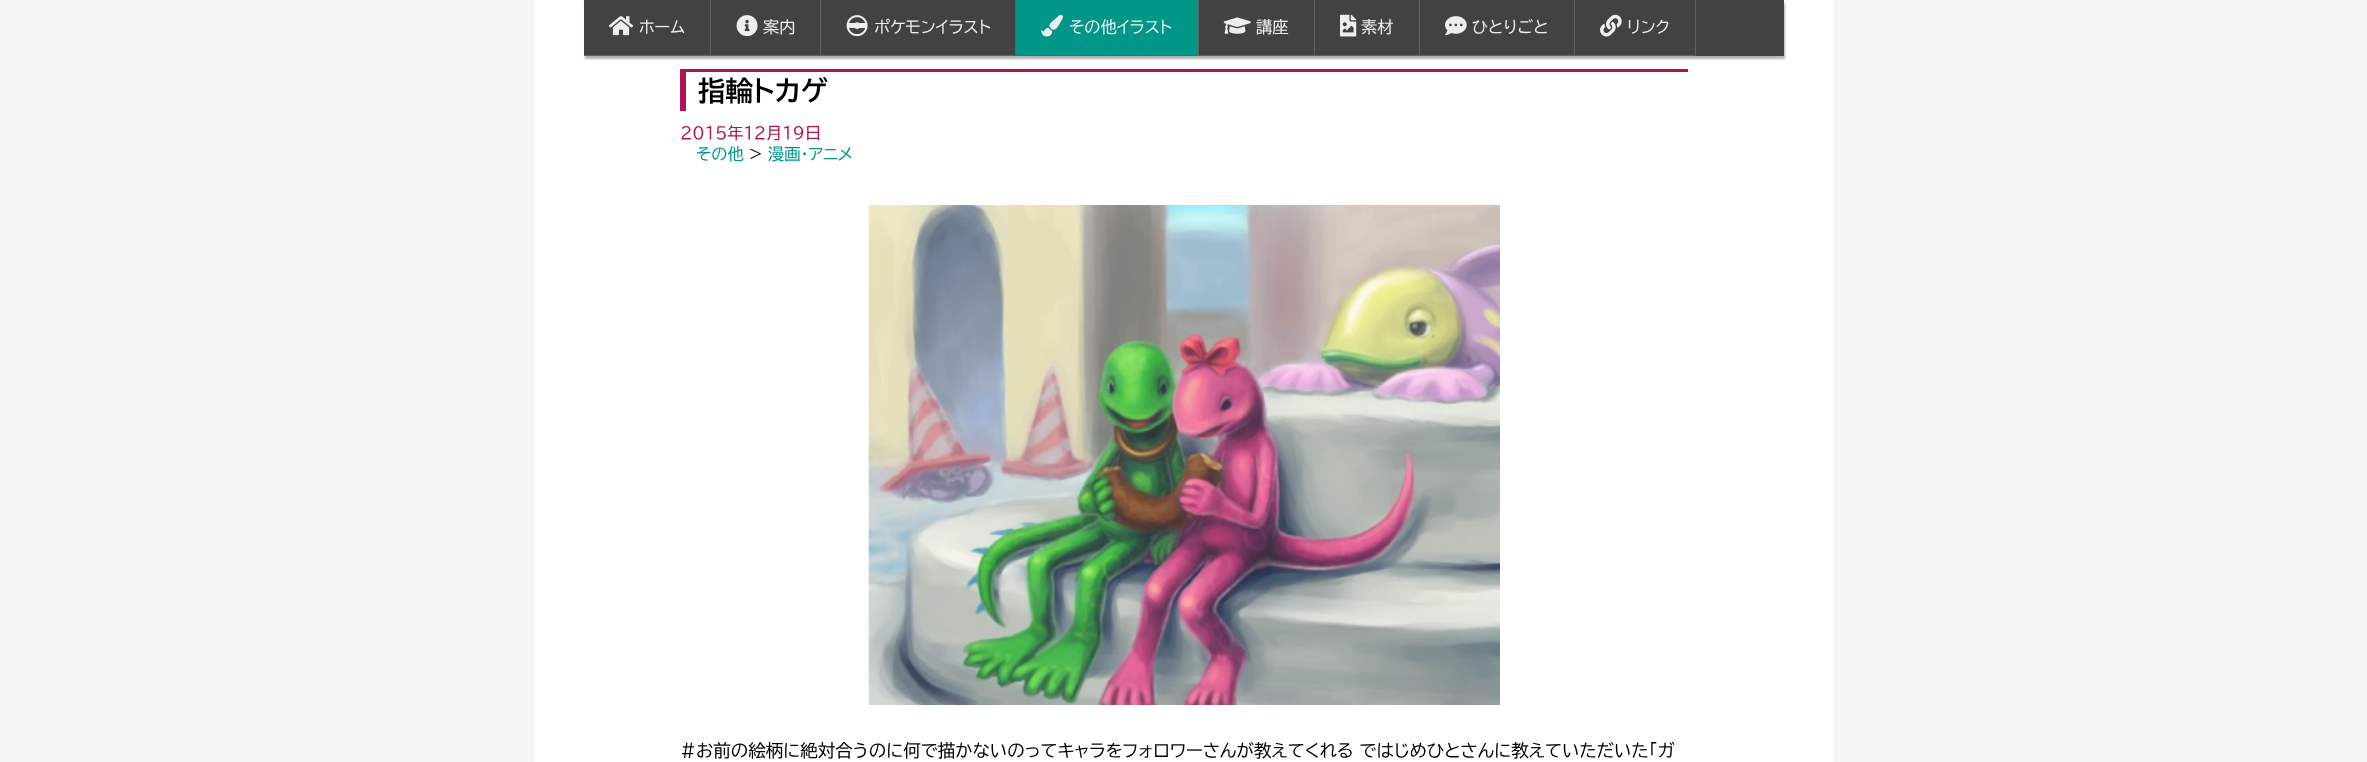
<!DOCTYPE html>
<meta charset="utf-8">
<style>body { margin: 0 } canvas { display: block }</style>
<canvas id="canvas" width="2367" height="762"></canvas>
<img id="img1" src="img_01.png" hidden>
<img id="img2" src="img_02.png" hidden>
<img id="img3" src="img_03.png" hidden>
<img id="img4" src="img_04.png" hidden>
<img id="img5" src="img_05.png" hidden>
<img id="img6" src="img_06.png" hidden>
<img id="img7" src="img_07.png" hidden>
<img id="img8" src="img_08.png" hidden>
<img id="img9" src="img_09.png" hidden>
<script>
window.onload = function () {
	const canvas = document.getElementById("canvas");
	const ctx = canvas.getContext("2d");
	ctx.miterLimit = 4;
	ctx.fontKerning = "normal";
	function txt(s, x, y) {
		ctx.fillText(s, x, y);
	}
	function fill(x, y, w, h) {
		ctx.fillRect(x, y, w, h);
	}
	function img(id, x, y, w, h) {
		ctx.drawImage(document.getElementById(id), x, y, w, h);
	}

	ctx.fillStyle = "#F5F5F5";
	fill(0, 0, 2367, 762);
	ctx.fillStyle = "#FFFFFF";
	fill(534, 0, 1300, 762);
	ctx.fillStyle = "rgba(0, 0, 0, 0.3)";
	ctx.filter = "blur(1px)";
	ctx.beginPath();
	ctx.rect(585, 3, 1200, 56);
	ctx.fill();
	ctx.filter = "none";
	ctx.fillStyle = "#424242";
	fill(584, 0, 1200, 56);
	ctx.fillStyle = "#616161";
	fill(710, 0, 1, 56);
	fill(584, 55, 127, 1);
	img("img1", 608, 16, 26, 20);
	fill(820, 0, 1, 56);
	fill(711, 55, 110, 1);
	img("img2", 736, 15, 22, 22);
	fill(1015, 0, 1, 56);
	fill(821, 55, 195, 1);
	ctx.fillStyle = "#EEEEEE";
	fill(847, 23, 20, 5);
	img("img3", 846, 15, 22, 22);
	ctx.fillStyle = "#009688";
	fill(1016, 0, 182, 55);
	ctx.fillStyle = "#616161";
	fill(1198, 0, 1, 56);
	fill(1016, 55, 183, 1);
	img("img4", 1041, 14, 22, 23);
	fill(1314, 0, 1, 56);
	fill(1199, 55, 116, 1);
	img("img5", 1223, 17, 28, 17);
	fill(1419, 0, 1, 56);
	fill(1315, 55, 105, 1);
	img("img6", 1340, 14, 17, 23);
	fill(1574, 0, 1, 56);
	fill(1420, 55, 155, 1);
	img("img7", 1445, 16, 22, 20);
	fill(1695, 0, 1, 56);
	fill(1575, 55, 121, 1);
	img("img8", 1600, 14, 22, 23);
	ctx.fillStyle = "#AD1457";
	fill(680, 69, 1008, 3);
	fill(680, 69, 6, 42);
	img("img9", 868, 205, 632, 500);
	ctx.font = "16.25px BIZ UDPGothic";
	ctx.fillStyle = "#EEEEEE";
	txt("ホーム", 639, 33);
	txt("案内", 763, 33);
	txt("ポケモンイラスト", 874, 33);
	txt("その他イラスト", 1069, 33);
	txt("講座", 1256, 33);
	txt("素材", 1361, 33);
	txt("ひとりごと", 1472, 33);
	txt("リンク", 1627, 33);
	ctx.font = "bold 27.5px BIZ UDPGothic";
	ctx.fillStyle = "#000000";
	txt("指輪トカゲ", 698, 101);
	ctx.font = "16.25px BIZ UDPGothic";
	ctx.fillStyle = "#AD1457";
	txt("2015年12月19日", 680, 139);
	ctx.fillStyle = "#009688";
	txt("その他", 696, 160);
	ctx.fillStyle = "#000000";
	txt(">", 749, 160);
	ctx.fillStyle = "#009688";
	txt("漫画・アニメ", 768, 160);
	ctx.font = "17.5px BIZ UDPGothic";
	ctx.fillStyle = "#000000";
	txt("#お前の絵柄に絶対合うのに何で描かないのってキャラをフォロワーさんが教えてくれる ではじめひとさんに教えていただいた「ガ", 680, 757);
};
</script>
